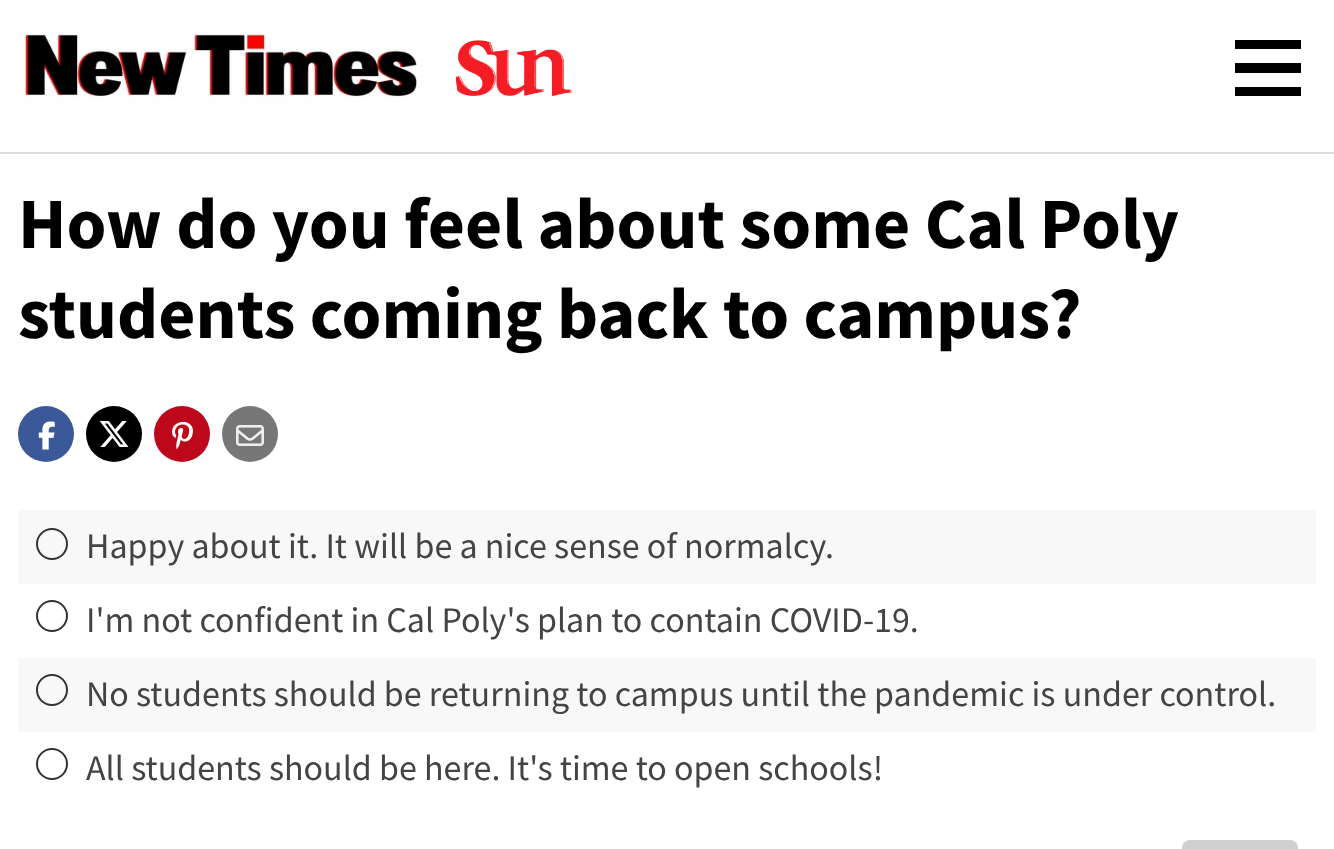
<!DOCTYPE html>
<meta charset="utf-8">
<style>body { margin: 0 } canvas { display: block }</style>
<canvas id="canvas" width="1334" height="849"></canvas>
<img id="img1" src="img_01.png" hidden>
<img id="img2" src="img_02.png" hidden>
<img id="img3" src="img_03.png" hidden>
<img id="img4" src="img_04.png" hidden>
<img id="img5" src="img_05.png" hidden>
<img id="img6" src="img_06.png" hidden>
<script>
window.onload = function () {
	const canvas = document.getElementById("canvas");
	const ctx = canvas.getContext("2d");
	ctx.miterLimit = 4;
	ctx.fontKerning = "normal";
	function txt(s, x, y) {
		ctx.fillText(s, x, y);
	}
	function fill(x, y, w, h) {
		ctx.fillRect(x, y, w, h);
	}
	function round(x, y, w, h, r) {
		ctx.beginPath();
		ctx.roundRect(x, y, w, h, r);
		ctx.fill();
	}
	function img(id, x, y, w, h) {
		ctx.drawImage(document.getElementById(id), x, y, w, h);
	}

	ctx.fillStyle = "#FFFFFF";
	fill(0, 0, 1334, 849);
	ctx.fillStyle = "#DDDDDD";
	fill(0, 152, 1334, 2);
	img("img1", 18, 28, 399, 77);
	img("img2", 455, 40, 117, 56);
	ctx.fillStyle = "#000000";
	fill(1235, 40, 66, 9);
	fill(1235, 63, 66, 10);
	fill(1235, 87, 66, 9);
	ctx.fillStyle = "#3B5998";
	ctx.beginPath();
	ctx.arc(46, 434, 28, 0, Math.PI * 2);
	ctx.fill();
	img("img3", 38, 421, 17, 29);
	ctx.fillStyle = "#000000";
	ctx.beginPath();
	ctx.arc(114, 434, 28, 0, Math.PI * 2);
	ctx.fill();
	img("img4", 99, 421, 30, 26);
	ctx.fillStyle = "#BD081C";
	ctx.beginPath();
	ctx.arc(182, 434, 28, 0, Math.PI * 2);
	ctx.fill();
	img("img5", 172, 421, 21, 29);
	ctx.fillStyle = "#777777";
	ctx.beginPath();
	ctx.arc(250, 434, 28, 0, Math.PI * 2);
	ctx.fill();
	img("img6", 236, 425, 28, 21);
	ctx.fillStyle = "#F8F8F8";
	fill(18, 510, 1298, 74);
	ctx.beginPath();
	ctx.arc(52, 544, 15, 0, Math.PI * 2);
	ctx.strokeStyle = "#333333";
	ctx.lineWidth = 2;
	ctx.stroke();
	ctx.beginPath();
	ctx.arc(52, 616, 15, 0, Math.PI * 2);
	ctx.stroke();
	fill(18, 658, 1298, 74);
	ctx.beginPath();
	ctx.arc(52, 690, 15, 0, Math.PI * 2);
	ctx.stroke();
	ctx.beginPath();
	ctx.arc(52, 764, 15, 0, Math.PI * 2);
	ctx.stroke();
	ctx.fillStyle = "#CFCFCF";
	round(1182, 840, 116, 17, 8);
	ctx.font = "bold 72px Source Sans Pro";
	ctx.fillStyle = "#000000";
	txt("How do you feel about some Cal Poly", 18, 248);
	txt("students coming back to campus?", 18, 338);
	ctx.font = "36px Source Sans Pro";
	ctx.fillStyle = "#444444";
	txt("Happy about it. It will be a nice sense of normalcy.", 86, 558);
	txt("I'm not confident in Cal Poly's plan to contain COVID-19.", 86, 632);
	txt("No students should be returning to campus until the pandemic is under control.", 86, 706);
	txt("All students should be here. It's time to open schools!", 86, 780);
};
</script>
